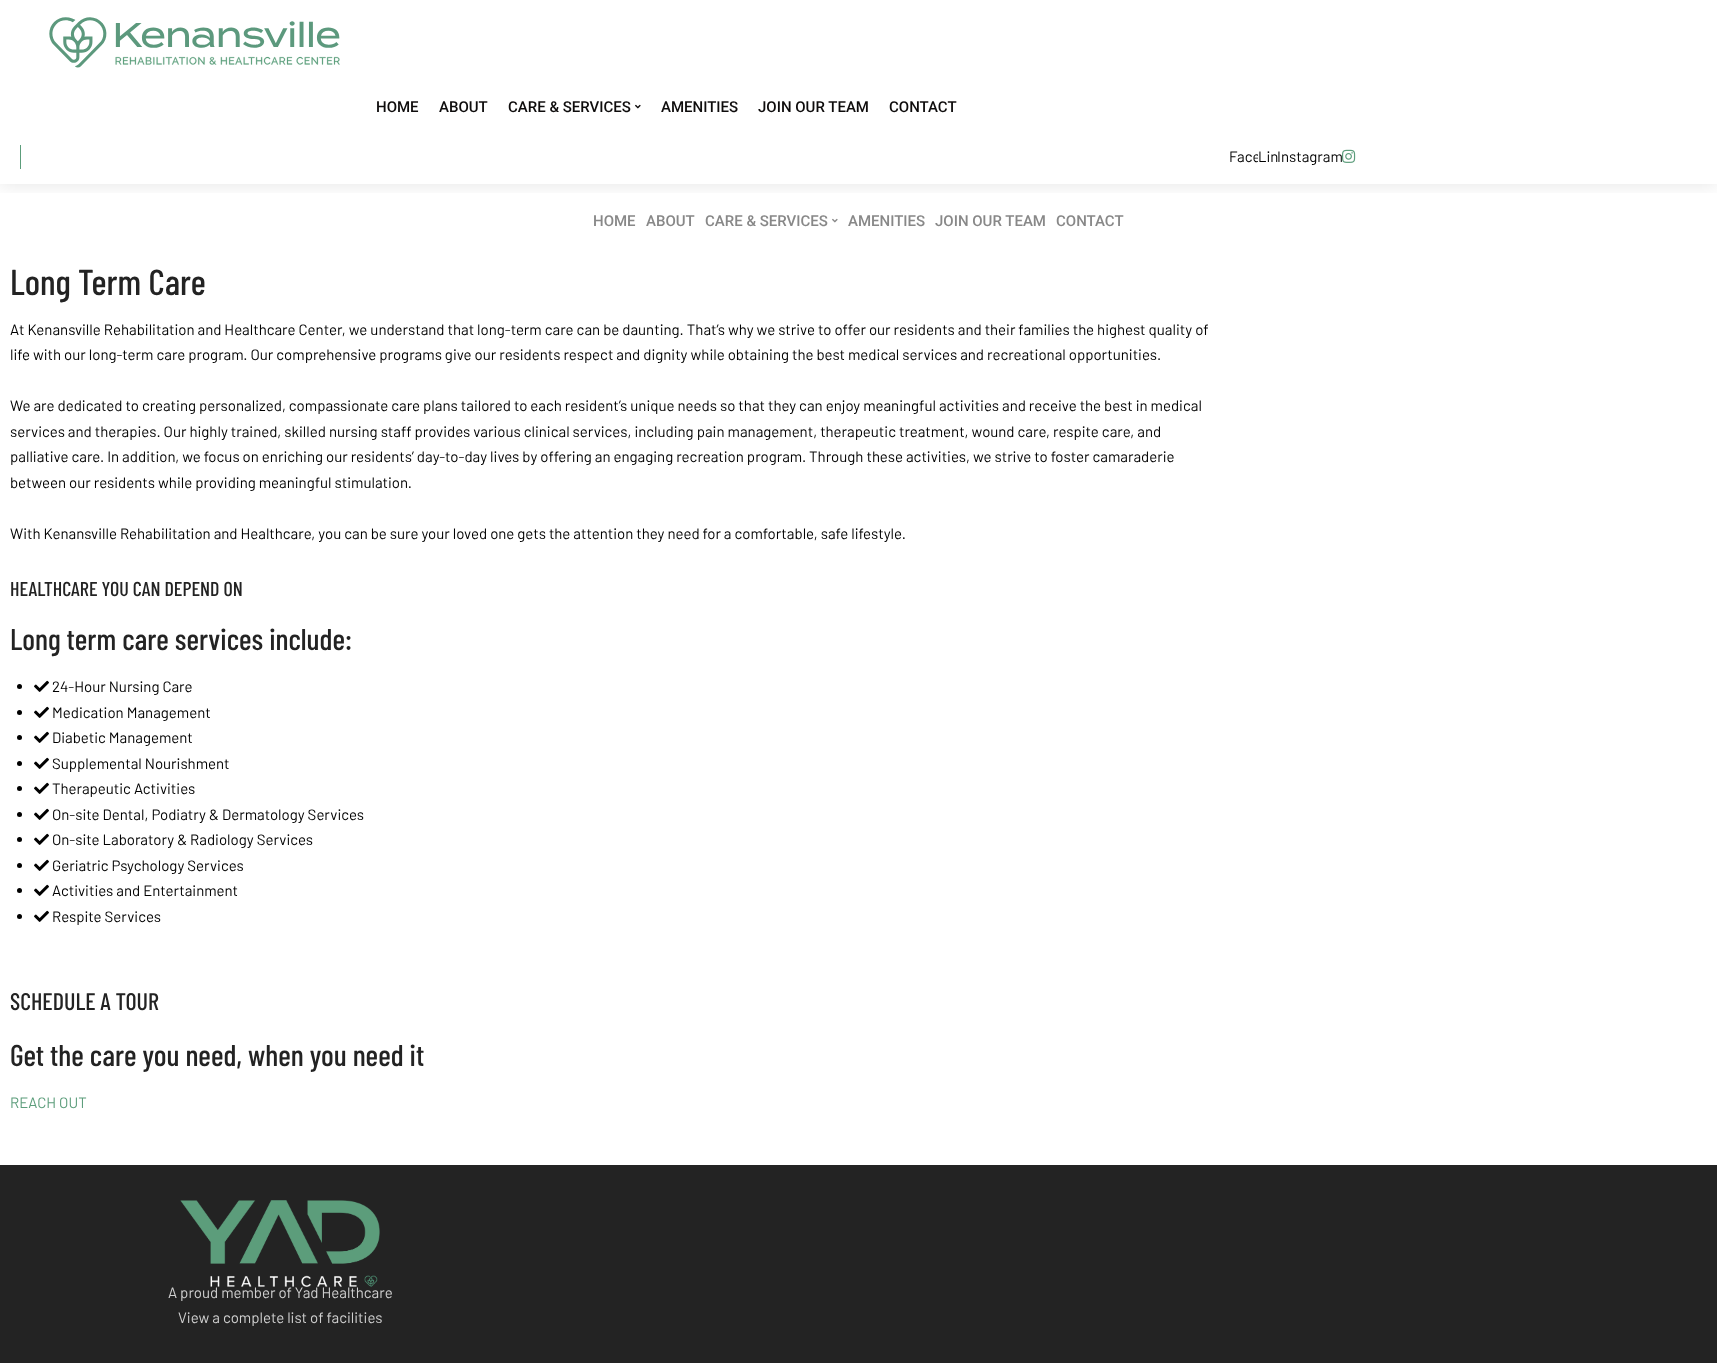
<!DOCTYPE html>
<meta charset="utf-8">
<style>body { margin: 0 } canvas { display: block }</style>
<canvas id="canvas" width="1717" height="1363"></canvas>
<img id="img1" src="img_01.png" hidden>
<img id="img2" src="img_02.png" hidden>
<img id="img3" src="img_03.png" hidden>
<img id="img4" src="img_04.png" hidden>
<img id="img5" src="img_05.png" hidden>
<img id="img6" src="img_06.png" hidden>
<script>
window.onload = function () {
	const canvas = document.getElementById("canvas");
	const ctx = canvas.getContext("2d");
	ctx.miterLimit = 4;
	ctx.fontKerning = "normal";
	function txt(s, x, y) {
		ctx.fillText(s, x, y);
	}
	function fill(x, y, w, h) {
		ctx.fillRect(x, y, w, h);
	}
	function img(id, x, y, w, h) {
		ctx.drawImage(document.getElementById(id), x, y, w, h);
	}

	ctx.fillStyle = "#FFFFFF";
	fill(0, 0, 1717, 1363);
	ctx.save();
	ctx.beginPath();
	ctx.rect(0, 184, 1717, 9);
	ctx.clip();
	ctx.fillStyle = "rgba(0, 0, 0, 0.11)";
	ctx.filter = "blur(10px)";
	ctx.beginPath();
	ctx.rect(0, 0, 1717, 184);
	ctx.fill();
	ctx.filter = "none";
	ctx.restore();
	img("img1", 49, 17, 291, 51);
	img("img2", 635, 104, 6, 5);
	ctx.fillStyle = "#5C9D7B";
	fill(20, 145, 1, 24);
	img("img3", 1342, 149, 14, 14);
	img("img4", 832, 218, 6, 5);
	ctx.fillStyle = "#000000";
	ctx.beginPath();
	ctx.arc(19.5, 686.5, 2.5, 0, Math.PI * 2);
	ctx.fill();
	img("img5", 34, 680, 15, 12);
	ctx.beginPath();
	ctx.arc(19.5, 712.5, 2.5, 0, Math.PI * 2);
	ctx.fill();
	img("img5", 34, 706, 15, 12);
	ctx.beginPath();
	ctx.arc(19.5, 737.5, 2.5, 0, Math.PI * 2);
	ctx.fill();
	img("img5", 34, 731, 15, 12);
	ctx.beginPath();
	ctx.arc(19.5, 763.5, 2.5, 0, Math.PI * 2);
	ctx.fill();
	img("img5", 34, 757, 15, 12);
	ctx.beginPath();
	ctx.arc(19.5, 788.5, 2.5, 0, Math.PI * 2);
	ctx.fill();
	img("img5", 34, 782, 15, 12);
	ctx.beginPath();
	ctx.arc(19.5, 814.5, 2.5, 0, Math.PI * 2);
	ctx.fill();
	img("img5", 34, 808, 15, 12);
	ctx.beginPath();
	ctx.arc(19.5, 839.5, 2.5, 0, Math.PI * 2);
	ctx.fill();
	img("img5", 34, 833, 15, 12);
	ctx.beginPath();
	ctx.arc(19.5, 865.5, 2.5, 0, Math.PI * 2);
	ctx.fill();
	img("img5", 34, 859, 15, 12);
	ctx.beginPath();
	ctx.arc(19.5, 890.5, 2.5, 0, Math.PI * 2);
	ctx.fill();
	img("img5", 34, 884, 15, 12);
	ctx.beginPath();
	ctx.arc(19.5, 916.5, 2.5, 0, Math.PI * 2);
	ctx.fill();
	img("img5", 34, 910, 15, 12);
	ctx.fillStyle = "#232323";
	fill(0, 1165, 1717, 198);
	img("img6", 180, 1200, 200, 87);
	ctx.font = "500 15px Roboto";
	ctx.fillStyle = "#0E0C0C";
	txt("HOME", 376, 112);
	txt("ABOUT", 439, 112);
	txt("CARE & SERVICES", 508, 112);
	txt("AMENITIES", 661, 112);
	txt("JOIN OUR TEAM", 758, 112);
	txt("CONTACT", 889, 112);
	ctx.font = "15px Barlow";
	ctx.fillStyle = "#000000";
	txt("Face", 1229, 162);
	ctx.fillStyle = "#FFFFFF";
	fill(1258, 154, 2, 8);
	ctx.fillStyle = "#000000";
	txt("Lin", 1258, 162);
	txt("Instagram", 1277, 162);
	ctx.font = "500 15px Roboto";
	ctx.fillStyle = "#888888";
	txt("HOME", 593, 226);
	txt("ABOUT", 646, 226);
	txt("CARE & SERVICES", 705, 226);
	txt("AMENITIES", 848, 226);
	txt("JOIN OUR TEAM", 935, 226);
	txt("CONTACT", 1056, 226);
	ctx.font = "500 36px Barlow Condensed";
	ctx.fillStyle = "#232323";
	txt("Long Term Care", 10, 295);
	ctx.font = "15px Barlow";
	ctx.fillStyle = "#000000";
	txt("At Kenansville Rehabilitation and Healthcare Center, we understand that long-term care can be daunting. That’s why we strive to offer our residents and their families the highest quality of", 10, 335);
	txt("life with our long-term care program. Our comprehensive programs give our residents respect and dignity while obtaining the best medical services and recreational opportunities.", 10, 360);
	txt("We are dedicated to creating personalized, compassionate care plans tailored to each resident’s unique needs so that they can enjoy meaningful activities and receive the best in medical", 10, 411);
	txt("services and therapies. Our highly trained, skilled nursing staff provides various clinical services, including pain management, therapeutic treatment, wound care, respite care, and", 10, 437);
	txt("palliative care. In addition, we focus on enriching our residents’ day-to-day lives by offering an engaging recreation program. Through these activities, we strive to foster camaraderie", 10, 462);
	txt("between our residents while providing meaningful stimulation.", 10, 488);
	txt("With Kenansville Rehabilitation and Healthcare, you can be sure your loved one gets the attention they need for a comfortable, safe lifestyle.", 10, 539);
	ctx.font = "500 20px Barlow Condensed";
	ctx.fillStyle = "#232323";
	txt("HEALTHCARE YOU CAN DEPEND ON", 10, 596);
	ctx.font = "500 30px Barlow Condensed";
	txt("Long term care services include:", 10, 650);
	ctx.font = "15px Barlow";
	ctx.fillStyle = "#000000";
	txt("24-Hour Nursing Care", 52, 692);
	txt("Medication Management", 52, 718);
	txt("Diabetic Management", 52, 743);
	txt("Supplemental Nourishment", 52, 769);
	txt("Therapeutic Activities", 52, 794);
	txt("On-site Dental, Podiatry & Dermatology Services", 52, 820);
	txt("On-site Laboratory & Radiology Services", 52, 845);
	txt("Geriatric Psychology Services", 52, 871);
	txt("Activities and Entertainment", 52, 896);
	txt("Respite Services", 52, 922);
	ctx.font = "500 24px Barlow Condensed";
	ctx.fillStyle = "#232323";
	txt("SCHEDULE A TOUR", 10, 1010);
	ctx.font = "500 30px Barlow Condensed";
	txt("Get the care you need, when you need it", 10, 1066);
	ctx.font = "15px Barlow";
	ctx.fillStyle = "#5C9D7B";
	txt("REACH OUT", 10, 1108);
	ctx.fillStyle = "#D0D0D0";
	txt("A proud member of Yad Healthcare", 168, 1298);
	txt("View a complete list of facilities", 178, 1323);
};
</script>
